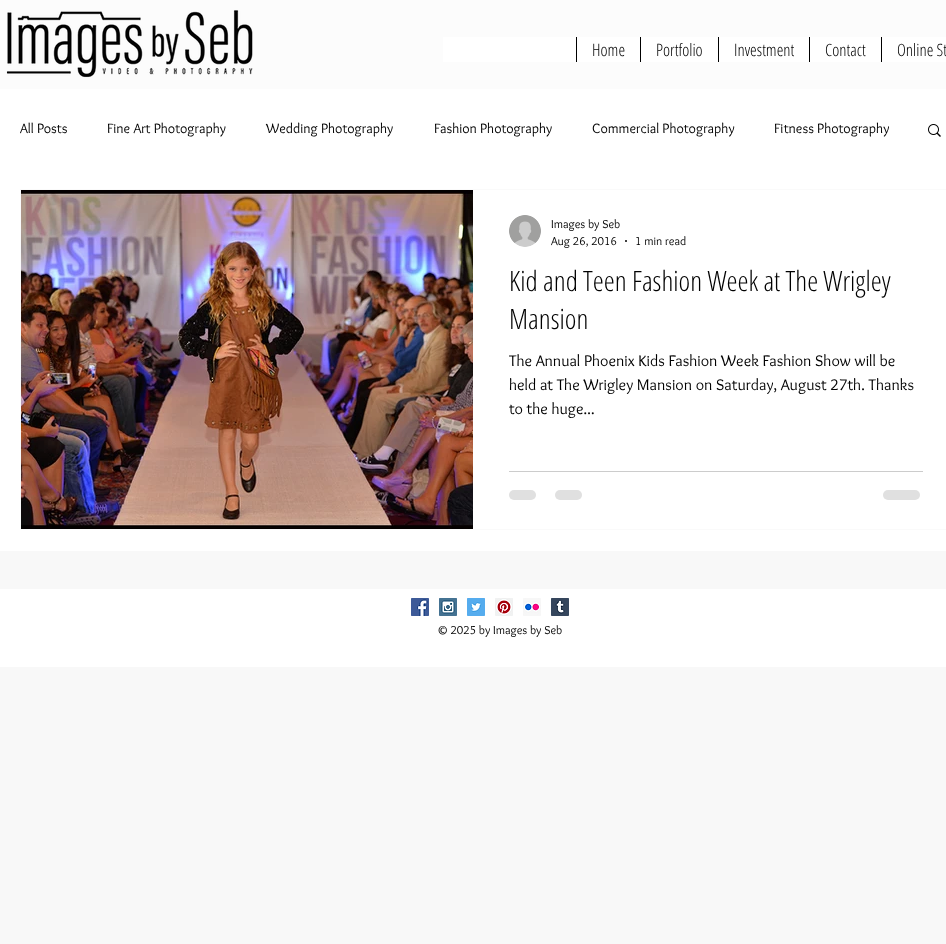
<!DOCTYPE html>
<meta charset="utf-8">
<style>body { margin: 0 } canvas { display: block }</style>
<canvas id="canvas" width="946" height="944"></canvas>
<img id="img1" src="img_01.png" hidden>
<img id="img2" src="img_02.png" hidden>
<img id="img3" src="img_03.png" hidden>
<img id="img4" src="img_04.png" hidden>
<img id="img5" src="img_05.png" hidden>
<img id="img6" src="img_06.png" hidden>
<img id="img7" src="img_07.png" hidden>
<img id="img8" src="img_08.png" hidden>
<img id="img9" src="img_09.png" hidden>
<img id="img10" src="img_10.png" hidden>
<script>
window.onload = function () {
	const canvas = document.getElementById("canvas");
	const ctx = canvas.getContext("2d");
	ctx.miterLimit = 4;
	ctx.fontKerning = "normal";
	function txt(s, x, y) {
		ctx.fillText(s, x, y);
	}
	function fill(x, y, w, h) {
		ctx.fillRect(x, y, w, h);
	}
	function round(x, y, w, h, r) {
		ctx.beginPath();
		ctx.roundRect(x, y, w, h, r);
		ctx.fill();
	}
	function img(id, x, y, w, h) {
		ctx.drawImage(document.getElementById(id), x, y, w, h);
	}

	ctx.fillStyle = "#F8F8F8";
	fill(0, 0, 946, 944);
	ctx.fillStyle = "#FCFCFC";
	fill(0, 0, 946, 89);
	img("img1", 6, 10, 247, 68);
	ctx.fillStyle = "#FFFFFF";
	fill(443, 37, 503, 25);
	ctx.fillStyle = "#000000";
	fill(576, 37, 1, 25);
	fill(640, 37, 1, 25);
	fill(718, 37, 1, 25);
	fill(809, 37, 1, 25);
	fill(881, 37, 1, 25);
	ctx.fillStyle = "#FFFFFF";
	fill(0, 89, 946, 462);
	img("img2", 928, 124, 13, 13);
	ctx.strokeStyle = "#FAFAFA";
	ctx.strokeRect(20.5, 189.5, 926, 340);
	img("img3", 21, 190, 452, 339);
	img("img4", 509, 215, 32, 32);
	ctx.fillStyle = "#000000";
	ctx.beginPath();
	ctx.arc(626, 241, 1, 0, Math.PI * 2);
	ctx.fill();
	ctx.fillStyle = "#CCCCCC";
	fill(509, 471, 414, 1);
	ctx.fillStyle = "#E0E0E0";
	round(509, 490, 27, 10, 5);
	round(555, 490, 27, 10, 5);
	round(883, 490, 37, 10, 5);
	ctx.fillStyle = "#FFFFFF";
	fill(0, 589, 946, 78);
	img("img5", 411, 598, 18, 18);
	img("img6", 439, 598, 18, 18);
	img("img7", 467, 598, 18, 18);
	img("img8", 495, 598, 18, 18);
	img("img9", 523, 598, 18, 18);
	img("img10", 551, 598, 18, 18);
	ctx.font = "300 17px Open Sans Condensed";
	ctx.fillStyle = "#000000";
	txt("Home", 592, 56);
	txt("Portfolio", 656, 56);
	txt("Investment", 734, 56);
	txt("Contact", 825, 56);
	txt("Online St", 897, 56);
	ctx.font = "14px Overlock";
	txt("All Posts", 20, 133);
	txt("Fine Art Photography", 107, 133);
	txt("Wedding Photography", 266, 133);
	txt("Fashion Photography", 434, 133);
	txt("Commercial Photography", 592, 133);
	txt("Fitness Photography", 774, 133);
	ctx.font = "12px Overlock";
	txt("Images by Seb", 551, 228);
	txt("Aug 26, 2016", 551, 245);
	txt("1 min read", 635, 245);
	ctx.font = "300 28px Open Sans Condensed";
	txt("Kid and Teen Fashion Week at The Wrigley", 509, 291);
	txt("Mansion", 509, 329);
	ctx.font = "16px Overlock";
	txt("The Annual Phoenix Kids Fashion Week Fashion Show will be", 509, 366);
	txt("held at The Wrigley Mansion on Saturday, August 27th. Thanks", 509, 390);
	txt("to the huge...", 509, 414);
	ctx.font = "12px Overlock";
	txt("© 2025 by Images by Seb", 437, 634);
};
</script>
